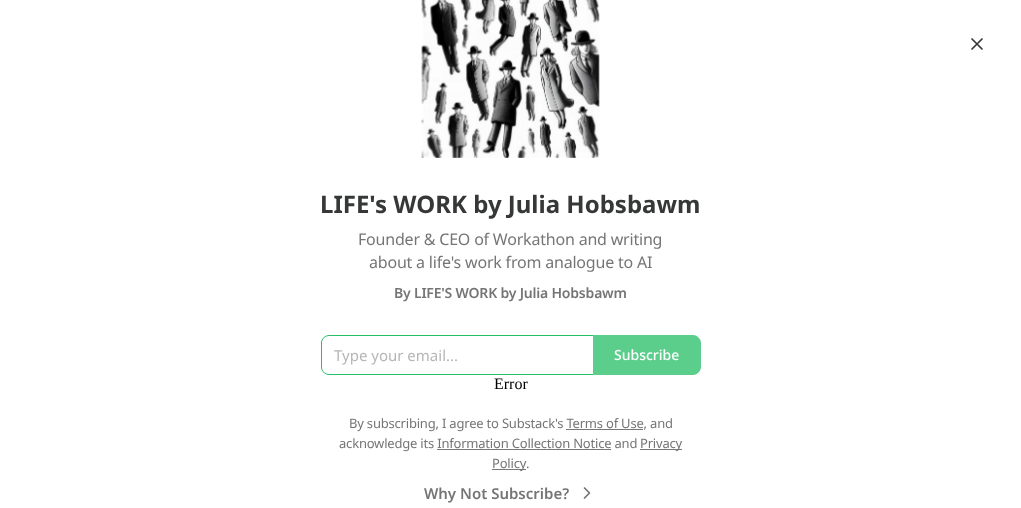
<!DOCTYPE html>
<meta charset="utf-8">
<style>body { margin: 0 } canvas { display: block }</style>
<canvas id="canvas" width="1021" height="508"></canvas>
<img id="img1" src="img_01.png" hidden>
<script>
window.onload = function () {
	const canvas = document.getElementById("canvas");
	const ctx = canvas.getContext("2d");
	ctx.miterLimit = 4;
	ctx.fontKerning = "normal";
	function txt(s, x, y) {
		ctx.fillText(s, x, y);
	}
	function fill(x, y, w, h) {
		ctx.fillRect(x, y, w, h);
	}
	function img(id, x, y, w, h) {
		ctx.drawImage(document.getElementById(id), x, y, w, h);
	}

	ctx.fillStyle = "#FFFFFF";
	fill(0, 0, 1021, 508);
	img("img1", 421, 0, 179, 158);
	ctx.beginPath();
	ctx.moveTo(982, 39);
	ctx.lineTo(972, 49);
	ctx.moveTo(972, 39);
	ctx.lineTo(982, 49);
	ctx.strokeStyle = "#363737";
	ctx.lineWidth = 1.7;
	ctx.lineCap = "round";
	ctx.lineJoin = "round";
	ctx.stroke();
	ctx.fillStyle = "#25BD65";
	ctx.beginPath();
	ctx.moveTo(329, 335);
	ctx.lineTo(593, 335);
	ctx.lineTo(593, 375);
	ctx.lineTo(329, 375);
	ctx.bezierCurveTo(325, 375, 321, 371, 321, 367);
	ctx.lineTo(321, 343);
	ctx.bezierCurveTo(321, 339, 325, 335, 329, 335);
	ctx.closePath();
	ctx.moveTo(329, 336);
	ctx.lineTo(593, 336);
	ctx.lineTo(593, 374);
	ctx.lineTo(329, 374);
	ctx.bezierCurveTo(325, 374, 322, 371, 322, 367);
	ctx.lineTo(322, 343);
	ctx.bezierCurveTo(322, 339, 325, 336, 329, 336);
	ctx.closePath();
	ctx.fill("evenodd");
	ctx.fillStyle = "#5CCE8C";
	ctx.beginPath();
	ctx.roundRect(593.5, 335.5, 107, 39, [0, 7.5, 7.5, 0]);
	ctx.fill();
	ctx.strokeStyle = "#5CCE8C";
	ctx.lineWidth = 1;
	ctx.lineJoin = "miter";
	ctx.stroke();
	ctx.fillStyle = "#777777";
	fill(640, 449, 42, 1);
	fill(492, 469, 34, 1);
	ctx.beginPath();
	ctx.moveTo(584.5, 498);
	ctx.lineTo(589.5, 493);
	ctx.lineTo(584.5, 488);
	ctx.strokeStyle = "#757575";
	ctx.lineWidth = 1.7;
	ctx.lineJoin = "round";
	ctx.stroke();
	ctx.font = "bold 24px Noto Sans";
	ctx.fillStyle = "#363737";
	txt("LIFE's WORK by Julia Hobsbawm", 320, 213);
	ctx.letterSpacing = "-0.2px";
	ctx.font = "16px Noto Sans";
	ctx.fillStyle = "#757575";
	txt("Founder & CEO of Workathon and writing", 358, 245);
	txt("about a life's work from analogue to AI", 369, 268);
	ctx.font = "600 14px Noto Sans";
	txt("By LIFE'S WORK by Julia Hobsbawm", 394, 298);
	ctx.letterSpacing = "0px";
	ctx.font = "15px Noto Sans";
	ctx.fillStyle = "#B6B6B6";
	txt("Type your email...", 334, 361);
	ctx.font = "500 14px Noto Sans";
	ctx.fillStyle = "#FFFFFF";
	txt("Subscribe", 614, 360);
	ctx.font = "16px Liberation Serif";
	ctx.fillStyle = "#000000";
	txt("Error", 494, 389);
	ctx.letterSpacing = "-0.2px";
	ctx.font = "13px Noto Sans";
	ctx.fillStyle = "#757575";
	txt("By subscribing, I agree to Substack's Terms of Use, and", 349, 428);
	ctx.fillStyle = "#777777";
	fill(566, 429, 77, 1);
	ctx.fillStyle = "#757575";
	txt("acknowledge its Information Collection Notice and", 339, 448);
	txt("Privacy", 640, 448);
	ctx.fillStyle = "#777777";
	fill(437, 449, 174, 1);
	ctx.fillStyle = "#757575";
	txt("Policy", 492, 468);
	txt(".", 526, 468);
	ctx.letterSpacing = "0px";
	ctx.font = "600 15px Noto Sans";
	txt("Why Not Subscribe?", 424, 499);
};
</script>
